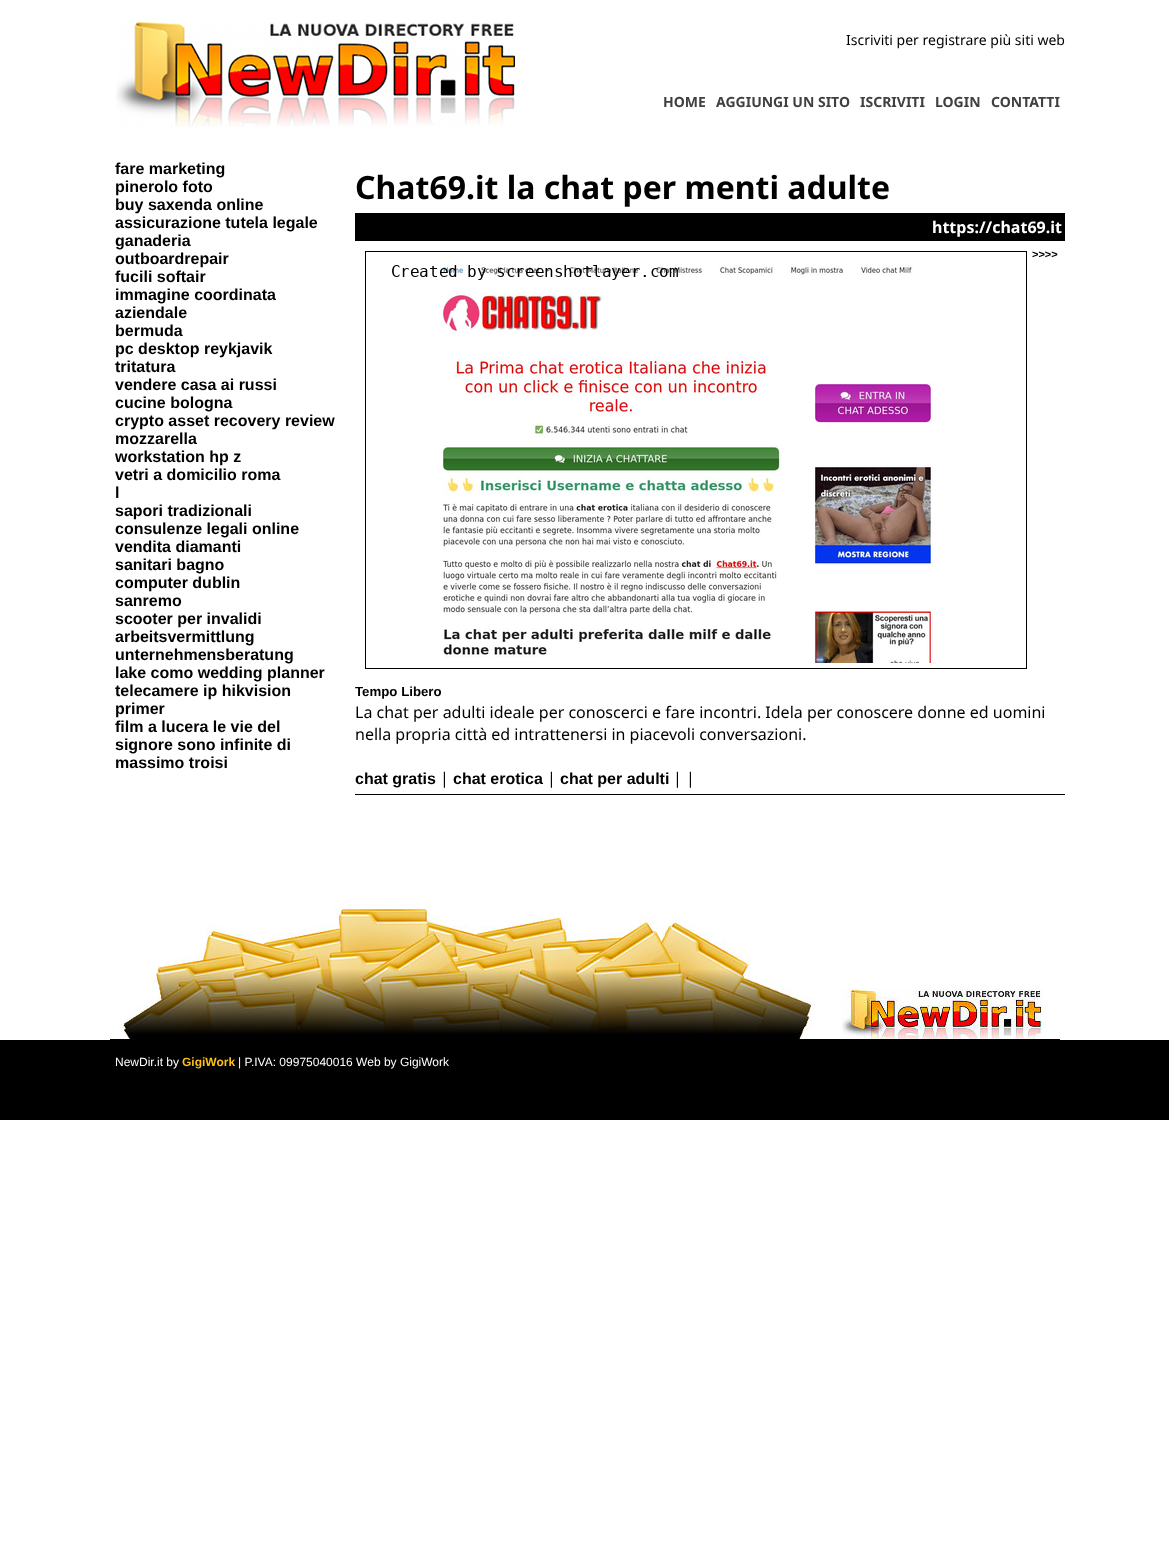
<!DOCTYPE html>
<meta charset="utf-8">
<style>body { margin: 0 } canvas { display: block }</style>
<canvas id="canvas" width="1169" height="1541"></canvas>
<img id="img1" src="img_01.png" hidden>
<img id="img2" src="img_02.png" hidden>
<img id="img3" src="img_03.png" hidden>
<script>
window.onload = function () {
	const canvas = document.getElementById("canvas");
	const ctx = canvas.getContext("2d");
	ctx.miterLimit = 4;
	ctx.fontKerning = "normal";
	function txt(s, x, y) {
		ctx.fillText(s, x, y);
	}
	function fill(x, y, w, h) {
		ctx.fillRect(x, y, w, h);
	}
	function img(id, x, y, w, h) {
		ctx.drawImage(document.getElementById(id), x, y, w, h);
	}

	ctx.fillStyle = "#FFFFFF";
	fill(0, 0, 1169, 1541);
	img("img1", 116, 21, 399, 106);
	ctx.fillStyle = "#000000";
	fill(355, 794, 710, 1);
	fill(355, 213, 710, 28);
	ctx.strokeStyle = "#000000";
	ctx.strokeRect(365.5, 251.5, 661, 417);
	img("img2", 392, 264, 543, 399);
	img("img3", 110, 909, 950, 131);
	fill(0, 1040, 1169, 80);
	ctx.font = "14px Noto Sans";
	txt("Iscriviti per registrare più siti web", 846, 45);
	ctx.font = "bold 14px Noto Sans";
	ctx.fillStyle = "#404040";
	txt("HOME", 663, 107);
	txt("AGGIUNGI UN SITO", 716, 107);
	txt("ISCRIVITI", 860, 107);
	txt("LOGIN", 935, 107);
	txt("CONTATTI", 991, 107);
	ctx.font = "bold 16px Liberation Sans";
	ctx.fillStyle = "#000000";
	txt("fare marketing", 115, 174);
	txt("pinerolo foto", 115, 192);
	txt("buy saxenda online", 115, 210);
	txt("assicurazione tutela legale", 115, 228);
	txt("ganaderia", 115, 246);
	txt("outboardrepair", 115, 264);
	txt("fucili softair", 115, 282);
	txt("immagine coordinata", 115, 300);
	txt("aziendale", 115, 318);
	txt("bermuda", 115, 336);
	txt("pc desktop reykjavik", 115, 354);
	txt("tritatura", 115, 372);
	txt("vendere casa ai russi", 115, 390);
	txt("cucine bologna", 115, 408);
	txt("crypto asset recovery review", 115, 426);
	txt("mozzarella", 115, 444);
	txt("workstation hp z", 115, 462);
	txt("vetri a domicilio roma", 115, 480);
	txt("l", 115, 498);
	txt("sapori tradizionali", 115, 516);
	txt("consulenze legali online", 115, 534);
	txt("vendita diamanti", 115, 552);
	txt("sanitari bagno", 115, 570);
	txt("computer dublin", 115, 588);
	txt("sanremo", 115, 606);
	txt("scooter per invalidi", 115, 624);
	txt("arbeitsvermittlung", 115, 642);
	txt("unternehmensberatung", 115, 660);
	txt("lake como wedding planner", 115, 678);
	txt("telecamere ip hikvision", 115, 696);
	txt("primer", 115, 714);
	txt("film a lucera le vie del", 115, 732);
	txt("signore sono infinite di", 115, 750);
	txt("massimo troisi", 115, 768);
	ctx.font = "bold 32px Noto Sans";
	txt("Chat69.it la chat per menti adulte", 355, 199);
	ctx.font = "bold 16px Noto Sans";
	ctx.fillStyle = "#FFFFFF";
	txt("https://chat69.it", 932, 233);
	ctx.font = "bold 11px Liberation Sans";
	ctx.fillStyle = "#000000";
	txt(">>>>", 1032, 258);
	ctx.font = "bold 13.25px Liberation Sans";
	txt("Tempo Libero", 355, 696);
	ctx.font = "16px Noto Sans";
	txt("La chat per adulti ideale per conoscerci e fare incontri. Idela per conoscere donne ed uomini", 355, 718);
	txt("nella propria città ed intrattenersi in piacevoli conversazioni.", 355, 740);
	ctx.font = "bold 16px Liberation Sans";
	txt("chat gratis", 355, 784);
	ctx.font = "16px Noto Sans";
	txt("|", 440, 784);
	ctx.font = "bold 16px Liberation Sans";
	txt("chat erotica", 453, 784);
	ctx.font = "16px Noto Sans";
	txt("|", 547, 784);
	ctx.font = "bold 16px Liberation Sans";
	txt("chat per adulti", 560, 784);
	ctx.font = "16px Noto Sans";
	txt("| |", 673, 784);
	ctx.font = "12px Liberation Sans";
	ctx.fillStyle = "#FFFFFF";
	txt("NewDir.it by", 115, 1066);
	ctx.font = "bold 12px Liberation Sans";
	ctx.fillStyle = "#FFBE1C";
	txt("GigiWork", 182, 1066);
	ctx.font = "12px Liberation Sans";
	ctx.fillStyle = "#FFFFFF";
	txt("| P.IVA: 09975040016 Web by GigiWork", 238, 1066);
};
</script>
